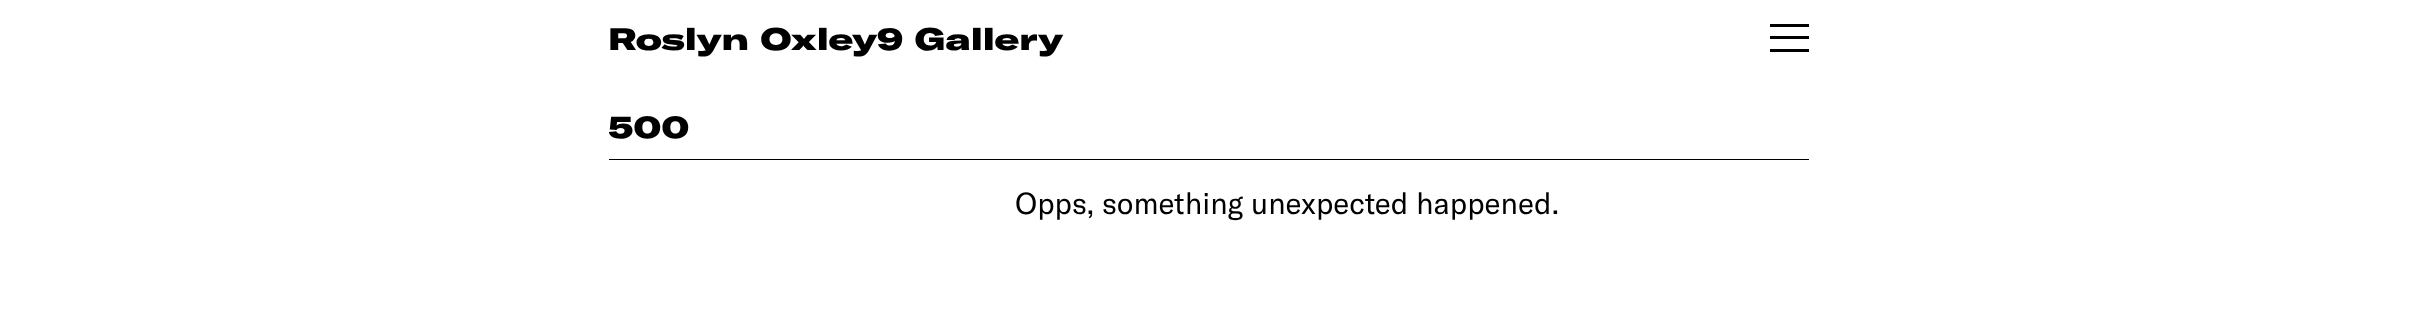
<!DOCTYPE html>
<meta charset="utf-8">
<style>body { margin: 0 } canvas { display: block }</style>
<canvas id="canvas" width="2416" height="309"></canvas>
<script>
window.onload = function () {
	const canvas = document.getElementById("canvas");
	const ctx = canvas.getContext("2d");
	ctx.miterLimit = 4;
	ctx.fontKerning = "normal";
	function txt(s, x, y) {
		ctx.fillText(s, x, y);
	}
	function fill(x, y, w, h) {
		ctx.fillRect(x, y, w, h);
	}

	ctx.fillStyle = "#FFFFFF";
	fill(0, 0, 2416, 309);
	ctx.fillStyle = "#000000";
	fill(1770, 24, 39, 3);
	fill(1770, 36, 39, 3);
	fill(1770, 49, 39, 3);
	fill(609, 159, 1200, 1);
	ctx.font = "900 30.6px GT America";
	txt("Roslyn Oxley9 Gallery", 608, 50);
	txt("500", 608, 138);
	ctx.font = "30px GT America";
	txt("Opps, something unexpected happened.", 1015, 214);
};
</script>
